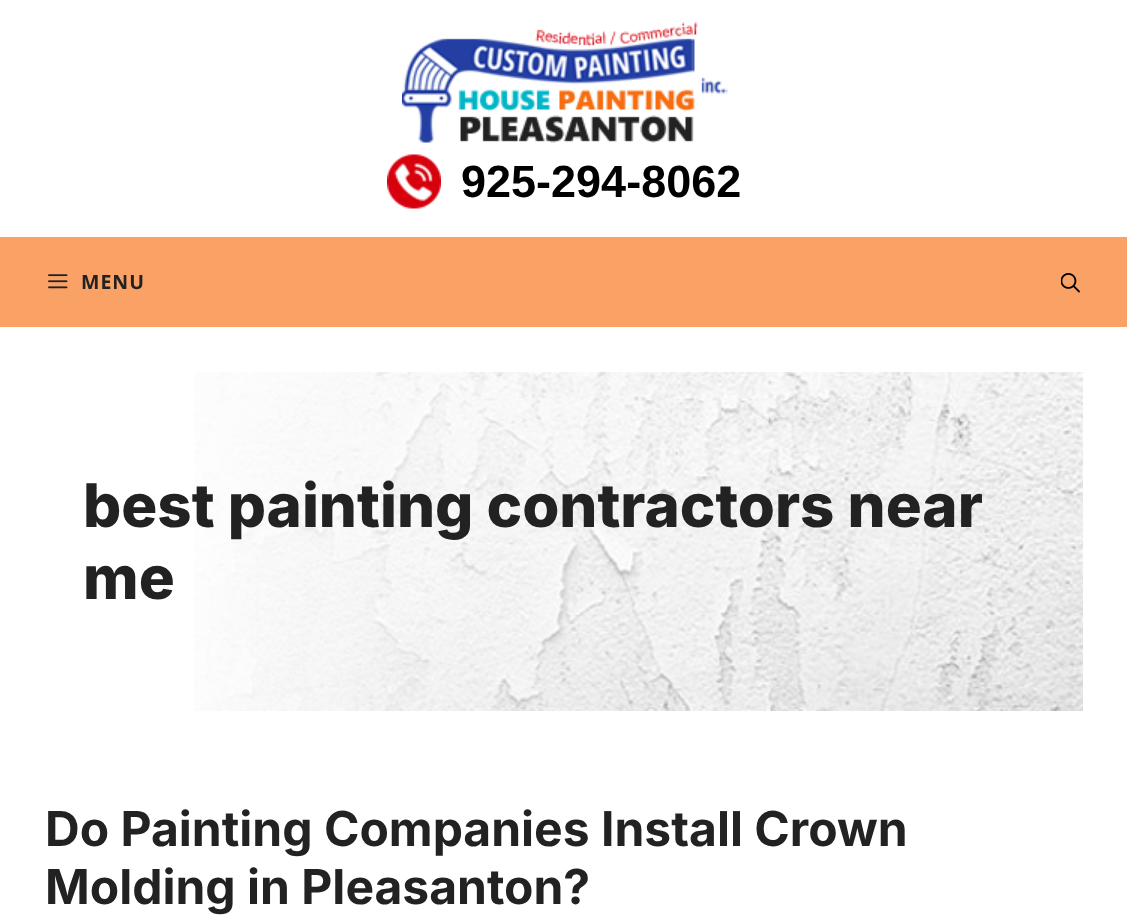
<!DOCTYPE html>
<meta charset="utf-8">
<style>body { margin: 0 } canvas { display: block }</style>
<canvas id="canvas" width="1127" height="915"></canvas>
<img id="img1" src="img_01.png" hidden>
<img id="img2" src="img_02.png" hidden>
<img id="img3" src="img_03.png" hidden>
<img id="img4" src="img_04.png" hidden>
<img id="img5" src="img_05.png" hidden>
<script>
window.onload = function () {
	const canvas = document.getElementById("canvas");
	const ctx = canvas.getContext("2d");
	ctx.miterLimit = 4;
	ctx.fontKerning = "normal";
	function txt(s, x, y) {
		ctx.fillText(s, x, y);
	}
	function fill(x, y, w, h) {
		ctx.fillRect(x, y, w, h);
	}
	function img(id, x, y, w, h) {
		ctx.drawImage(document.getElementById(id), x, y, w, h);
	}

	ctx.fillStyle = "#FFFFFF";
	fill(0, 0, 1127, 915);
	img("img1", 402, 22, 326, 121);
	img("img2", 387, 154, 54, 55);
	ctx.fillStyle = "#FAA166";
	fill(0, 237, 1127, 90);
	img("img3", 48, 274, 20, 15);
	img("img4", 1061, 273, 19, 20);
	img("img5", 194, 372, 889, 339);
	ctx.font = "bold 45px Liberation Sans";
	ctx.fillStyle = "#000000";
	txt("925-294-8062", 461, 197);
	ctx.letterSpacing = "1px";
	ctx.font = "bold 19.5px Noto Sans";
	ctx.fillStyle = "#222222";
	txt("MENU", 81, 289);
	ctx.letterSpacing = "0px";
	ctx.font = "800 60px Inter";
	txt("best painting contractors near", 83, 527);
	txt("me", 83, 599);
	ctx.font = "bold 48px Inter";
	txt("Do Painting Companies Install Crown", 45, 846);
	txt("Molding in Pleasanton?", 45, 904);
};
</script>
